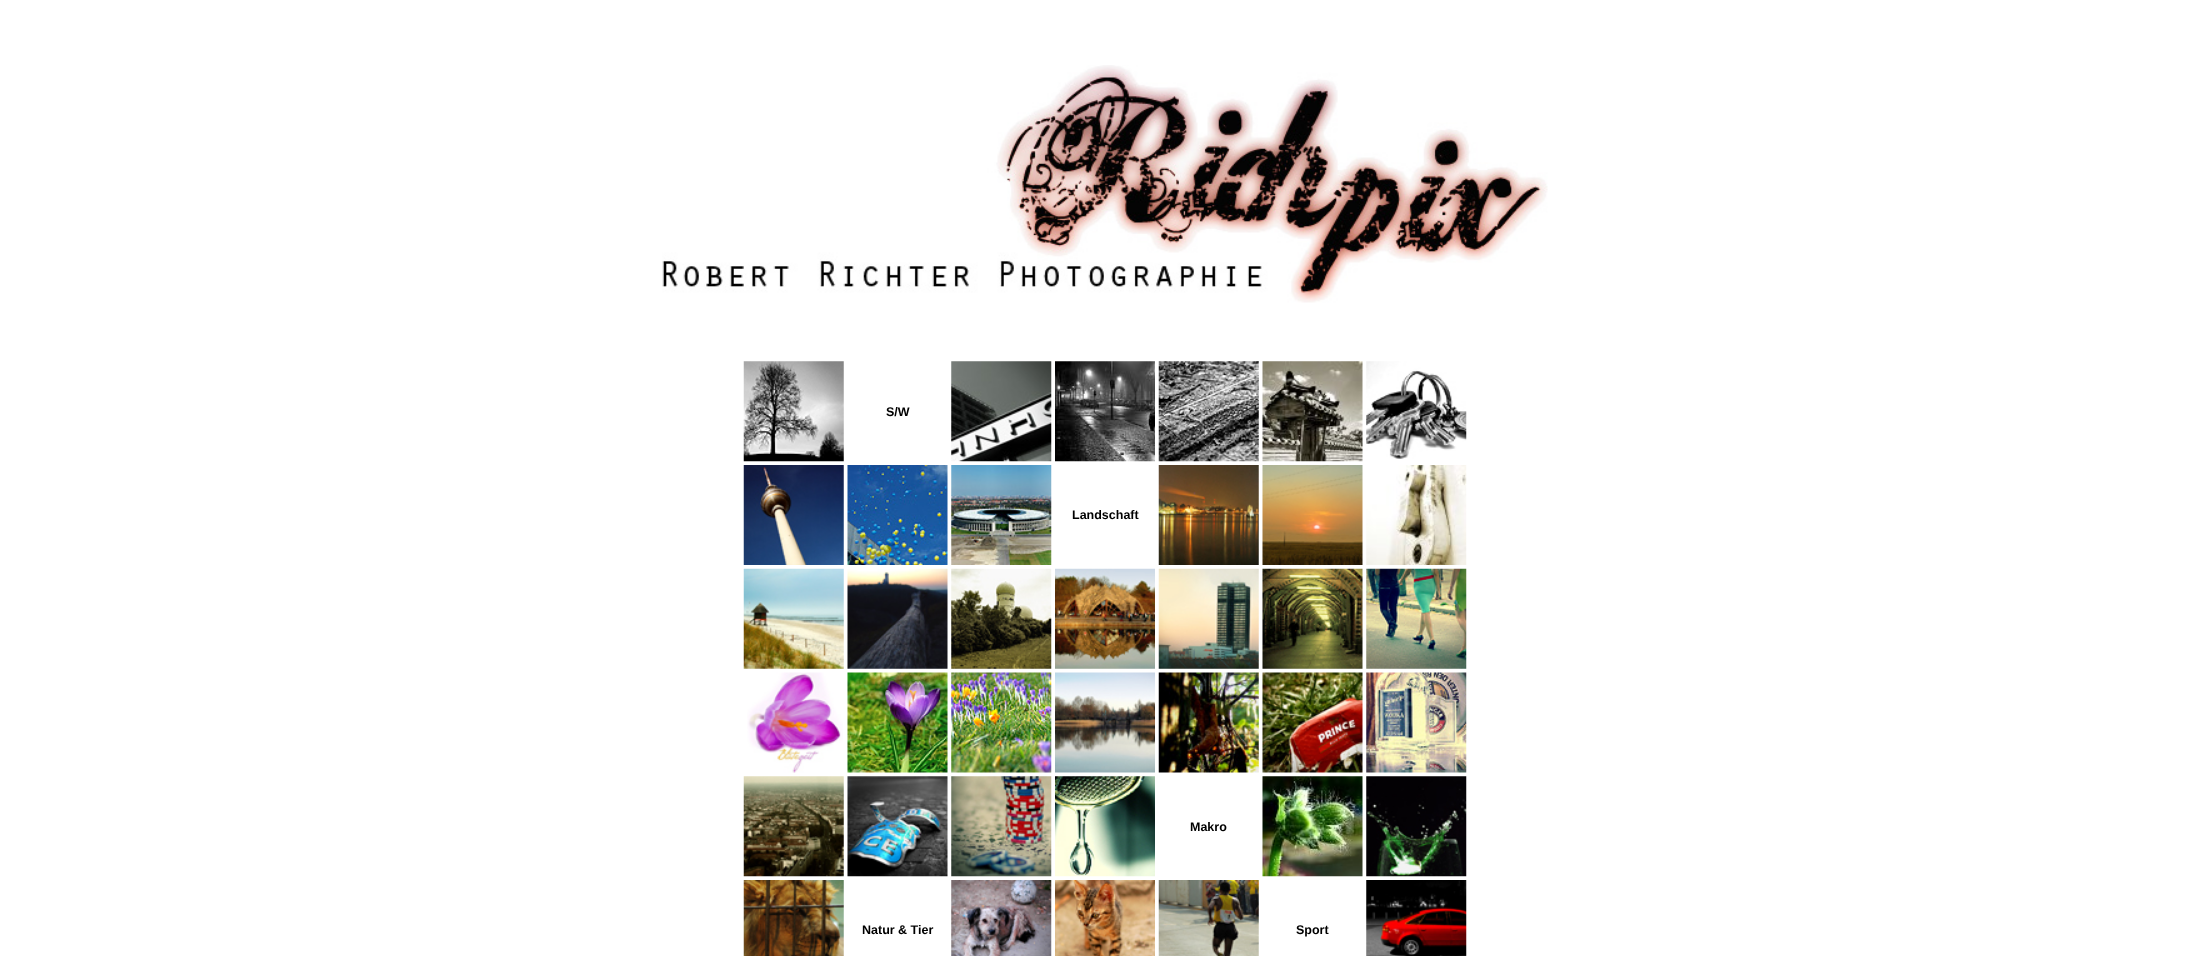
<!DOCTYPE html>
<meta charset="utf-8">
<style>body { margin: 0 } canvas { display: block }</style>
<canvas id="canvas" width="2209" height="956"></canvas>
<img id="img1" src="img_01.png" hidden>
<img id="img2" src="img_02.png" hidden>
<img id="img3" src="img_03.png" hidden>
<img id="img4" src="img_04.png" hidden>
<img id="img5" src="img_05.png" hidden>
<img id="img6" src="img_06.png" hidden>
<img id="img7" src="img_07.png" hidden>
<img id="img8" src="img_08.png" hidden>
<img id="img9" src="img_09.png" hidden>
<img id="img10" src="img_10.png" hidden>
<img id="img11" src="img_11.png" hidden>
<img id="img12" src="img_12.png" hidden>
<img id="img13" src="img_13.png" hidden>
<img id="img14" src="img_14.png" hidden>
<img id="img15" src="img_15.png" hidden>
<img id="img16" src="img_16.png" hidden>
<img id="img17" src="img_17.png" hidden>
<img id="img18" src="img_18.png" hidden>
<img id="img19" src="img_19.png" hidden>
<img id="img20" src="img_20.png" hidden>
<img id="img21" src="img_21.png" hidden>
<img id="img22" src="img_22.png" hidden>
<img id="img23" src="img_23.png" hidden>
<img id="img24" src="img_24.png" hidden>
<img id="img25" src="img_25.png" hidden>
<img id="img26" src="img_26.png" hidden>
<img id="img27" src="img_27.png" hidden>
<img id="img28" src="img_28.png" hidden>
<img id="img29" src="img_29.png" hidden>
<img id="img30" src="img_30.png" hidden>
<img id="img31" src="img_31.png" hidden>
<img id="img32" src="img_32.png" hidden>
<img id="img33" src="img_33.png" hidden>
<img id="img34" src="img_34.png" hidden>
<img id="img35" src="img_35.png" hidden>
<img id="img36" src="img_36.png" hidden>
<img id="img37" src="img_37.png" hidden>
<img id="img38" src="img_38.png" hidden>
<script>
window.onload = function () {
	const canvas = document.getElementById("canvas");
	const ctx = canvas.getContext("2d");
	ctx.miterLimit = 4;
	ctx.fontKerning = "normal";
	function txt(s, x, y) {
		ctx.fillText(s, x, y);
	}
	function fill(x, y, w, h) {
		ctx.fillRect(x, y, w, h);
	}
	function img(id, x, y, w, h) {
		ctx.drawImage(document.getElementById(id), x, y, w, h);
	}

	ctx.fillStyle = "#FFFFFF";
	fill(0, 0, 2209, 956);
	img("img1", 662, 65, 886, 238);
	img("img2", 743, 361, 101, 101);
	img("img3", 951, 361, 101, 101);
	img("img4", 1055, 361, 100, 101);
	img("img5", 1158, 361, 101, 101);
	img("img6", 1262, 361, 101, 101);
	img("img7", 1366, 361, 101, 98);
	img("img8", 743, 465, 101, 100);
	img("img9", 847, 465, 101, 100);
	img("img10", 951, 465, 101, 100);
	img("img11", 1158, 465, 101, 100);
	img("img12", 1262, 465, 101, 100);
	img("img13", 1366, 465, 101, 100);
	img("img14", 743, 568, 101, 101);
	img("img15", 847, 568, 101, 101);
	img("img16", 951, 568, 101, 101);
	img("img17", 1055, 568, 100, 101);
	img("img18", 1158, 568, 101, 101);
	img("img19", 1262, 568, 101, 101);
	img("img20", 1366, 568, 101, 101);
	img("img21", 747, 672, 96, 101);
	img("img22", 847, 672, 101, 101);
	img("img23", 951, 672, 101, 101);
	img("img24", 1055, 672, 100, 101);
	img("img25", 1158, 672, 101, 101);
	img("img26", 1262, 672, 101, 101);
	img("img27", 1366, 672, 101, 101);
	img("img28", 743, 776, 101, 101);
	img("img29", 847, 776, 101, 101);
	img("img30", 951, 776, 101, 101);
	img("img31", 1055, 776, 100, 101);
	img("img32", 1262, 776, 101, 101);
	img("img33", 1366, 776, 101, 101);
	img("img34", 743, 880, 101, 76);
	img("img35", 951, 880, 101, 76);
	img("img36", 1055, 880, 100, 76);
	img("img37", 1158, 880, 101, 76);
	img("img38", 1366, 880, 101, 76);
	ctx.font = "bold 12.5px Liberation Sans";
	ctx.fillStyle = "#000000";
	txt("S/W", 886, 416);
	txt("Landschaft", 1072, 519);
	txt("Makro", 1190, 831);
	txt("Natur & Tier", 862, 934);
	txt("Sport", 1296, 934);
};
</script>
